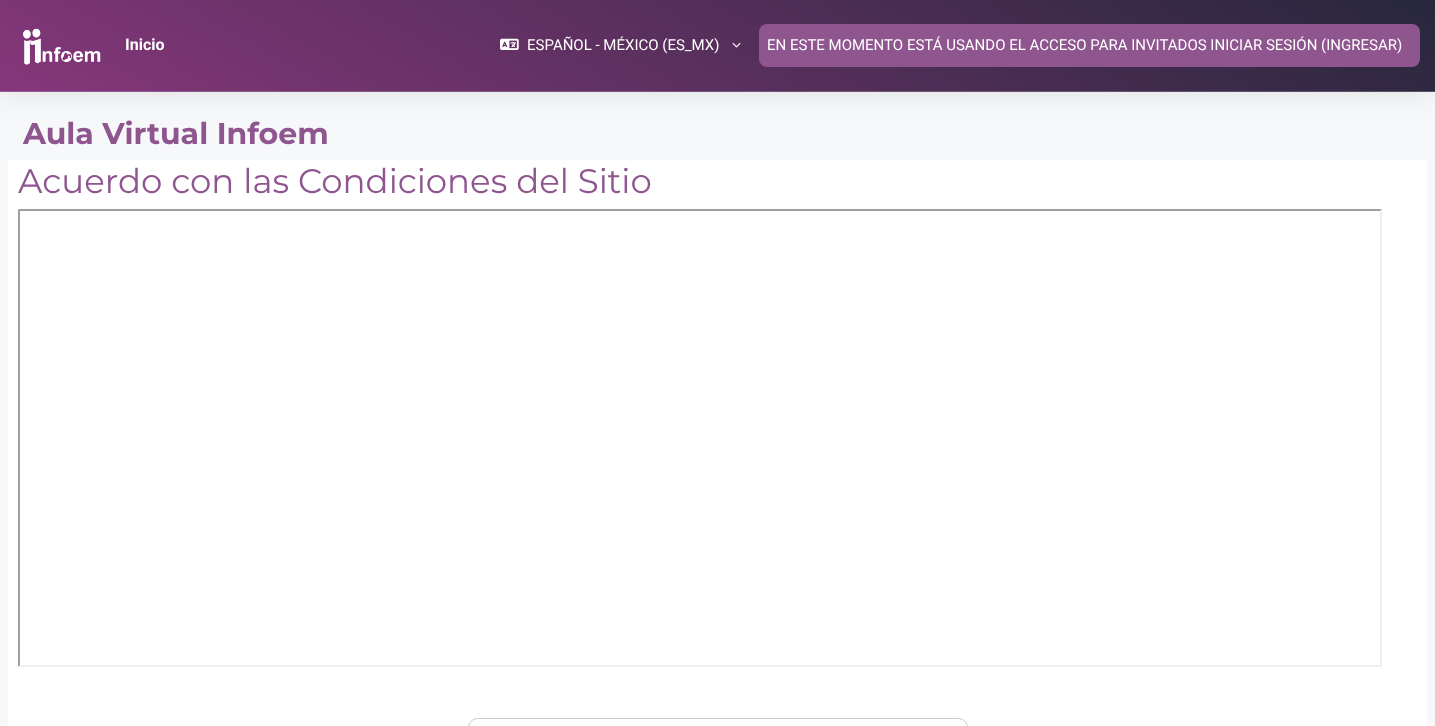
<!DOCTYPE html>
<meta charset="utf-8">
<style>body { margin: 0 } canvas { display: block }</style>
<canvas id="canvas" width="1435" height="726"></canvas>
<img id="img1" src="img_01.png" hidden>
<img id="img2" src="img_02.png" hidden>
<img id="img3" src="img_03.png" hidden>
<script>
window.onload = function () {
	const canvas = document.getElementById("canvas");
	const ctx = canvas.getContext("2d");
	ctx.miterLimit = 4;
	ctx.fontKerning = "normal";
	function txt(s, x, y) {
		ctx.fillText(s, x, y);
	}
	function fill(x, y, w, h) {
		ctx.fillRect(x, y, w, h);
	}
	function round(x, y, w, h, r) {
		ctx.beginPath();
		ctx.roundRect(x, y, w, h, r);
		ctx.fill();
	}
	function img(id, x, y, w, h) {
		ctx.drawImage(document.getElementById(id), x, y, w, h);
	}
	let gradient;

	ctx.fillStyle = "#F7F8FA";
	fill(0, 0, 1435, 726);
	ctx.fillStyle = "rgba(0, 0, 0, 0.1)";
	ctx.filter = "blur(15px)";
	ctx.beginPath();
	ctx.rect(0, 0, 1435, 92);
	ctx.fill();
	ctx.filter = "none";
	gradient = ctx.createLinearGradient(518, 390, 917, -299);
	gradient.addColorStop(0, "#86377B");
	gradient.addColorStop(1, "#27273C");
	ctx.fillStyle = gradient;
	fill(0, 0, 1435, 91);
	gradient = ctx.createLinearGradient(518, 481, 917, -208);
	gradient.addColorStop(0, "#9E5F95");
	gradient.addColorStop(1, "#525263");
	ctx.fillStyle = gradient;
	fill(0, 91, 1435, 1);
	img("img1", 23, 28, 78, 37);
	img("img2", 500, 38, 19, 12);
	img("img3", 732, 43, 9, 5);
	ctx.fillStyle = "#8E558E";
	round(759, 24, 661, 43, 8);
	ctx.fillStyle = "#FFFFFF";
	fill(8, 160, 1419, 566);
	ctx.fillStyle = "#9F9F9F";
	ctx.beginPath();
	ctx.moveTo(18, 209);
	ctx.lineTo(1382, 209);
	ctx.lineTo(1380, 211);
	ctx.lineTo(20, 211);
	ctx.closePath();
	ctx.fill();
	ctx.fillStyle = "#EEEEEE";
	ctx.beginPath();
	ctx.moveTo(1382, 209);
	ctx.lineTo(1382, 667);
	ctx.lineTo(1380, 665);
	ctx.lineTo(1380, 211);
	ctx.closePath();
	ctx.fill();
	ctx.beginPath();
	ctx.moveTo(1382, 667);
	ctx.lineTo(18, 667);
	ctx.lineTo(20, 665);
	ctx.lineTo(1380, 665);
	ctx.closePath();
	ctx.fill();
	ctx.fillStyle = "#9F9F9F";
	ctx.beginPath();
	ctx.moveTo(18, 667);
	ctx.lineTo(18, 209);
	ctx.lineTo(20, 211);
	ctx.lineTo(20, 665);
	ctx.closePath();
	ctx.fill();
	ctx.beginPath();
	ctx.roundRect(468.5, 718.5, 499, 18, 9.5);
	ctx.strokeStyle = "#CCCCCC";
	ctx.stroke();
	ctx.font = "bold 16px Roboto";
	ctx.fillStyle = "#FFFFFF";
	txt("Inicio", 125, 50);
	ctx.font = "15px Roboto";
	txt("ESPAÑOL - MÉXICO (ES_MX)", 527, 50);
	txt("EN ESTE MOMENTO ESTÁ USANDO EL ACCESO PARA INVITADOS INICIAR SESIÓN (INGRESAR)", 767, 50);
	ctx.font = "bold 30px Montserrat";
	ctx.fillStyle = "#8E558E";
	txt("Aula Virtual Infoem", 23, 144);
	ctx.font = "34px Montserrat";
	txt("Acuerdo con las Condiciones del Sitio", 18, 193);
};
</script>
